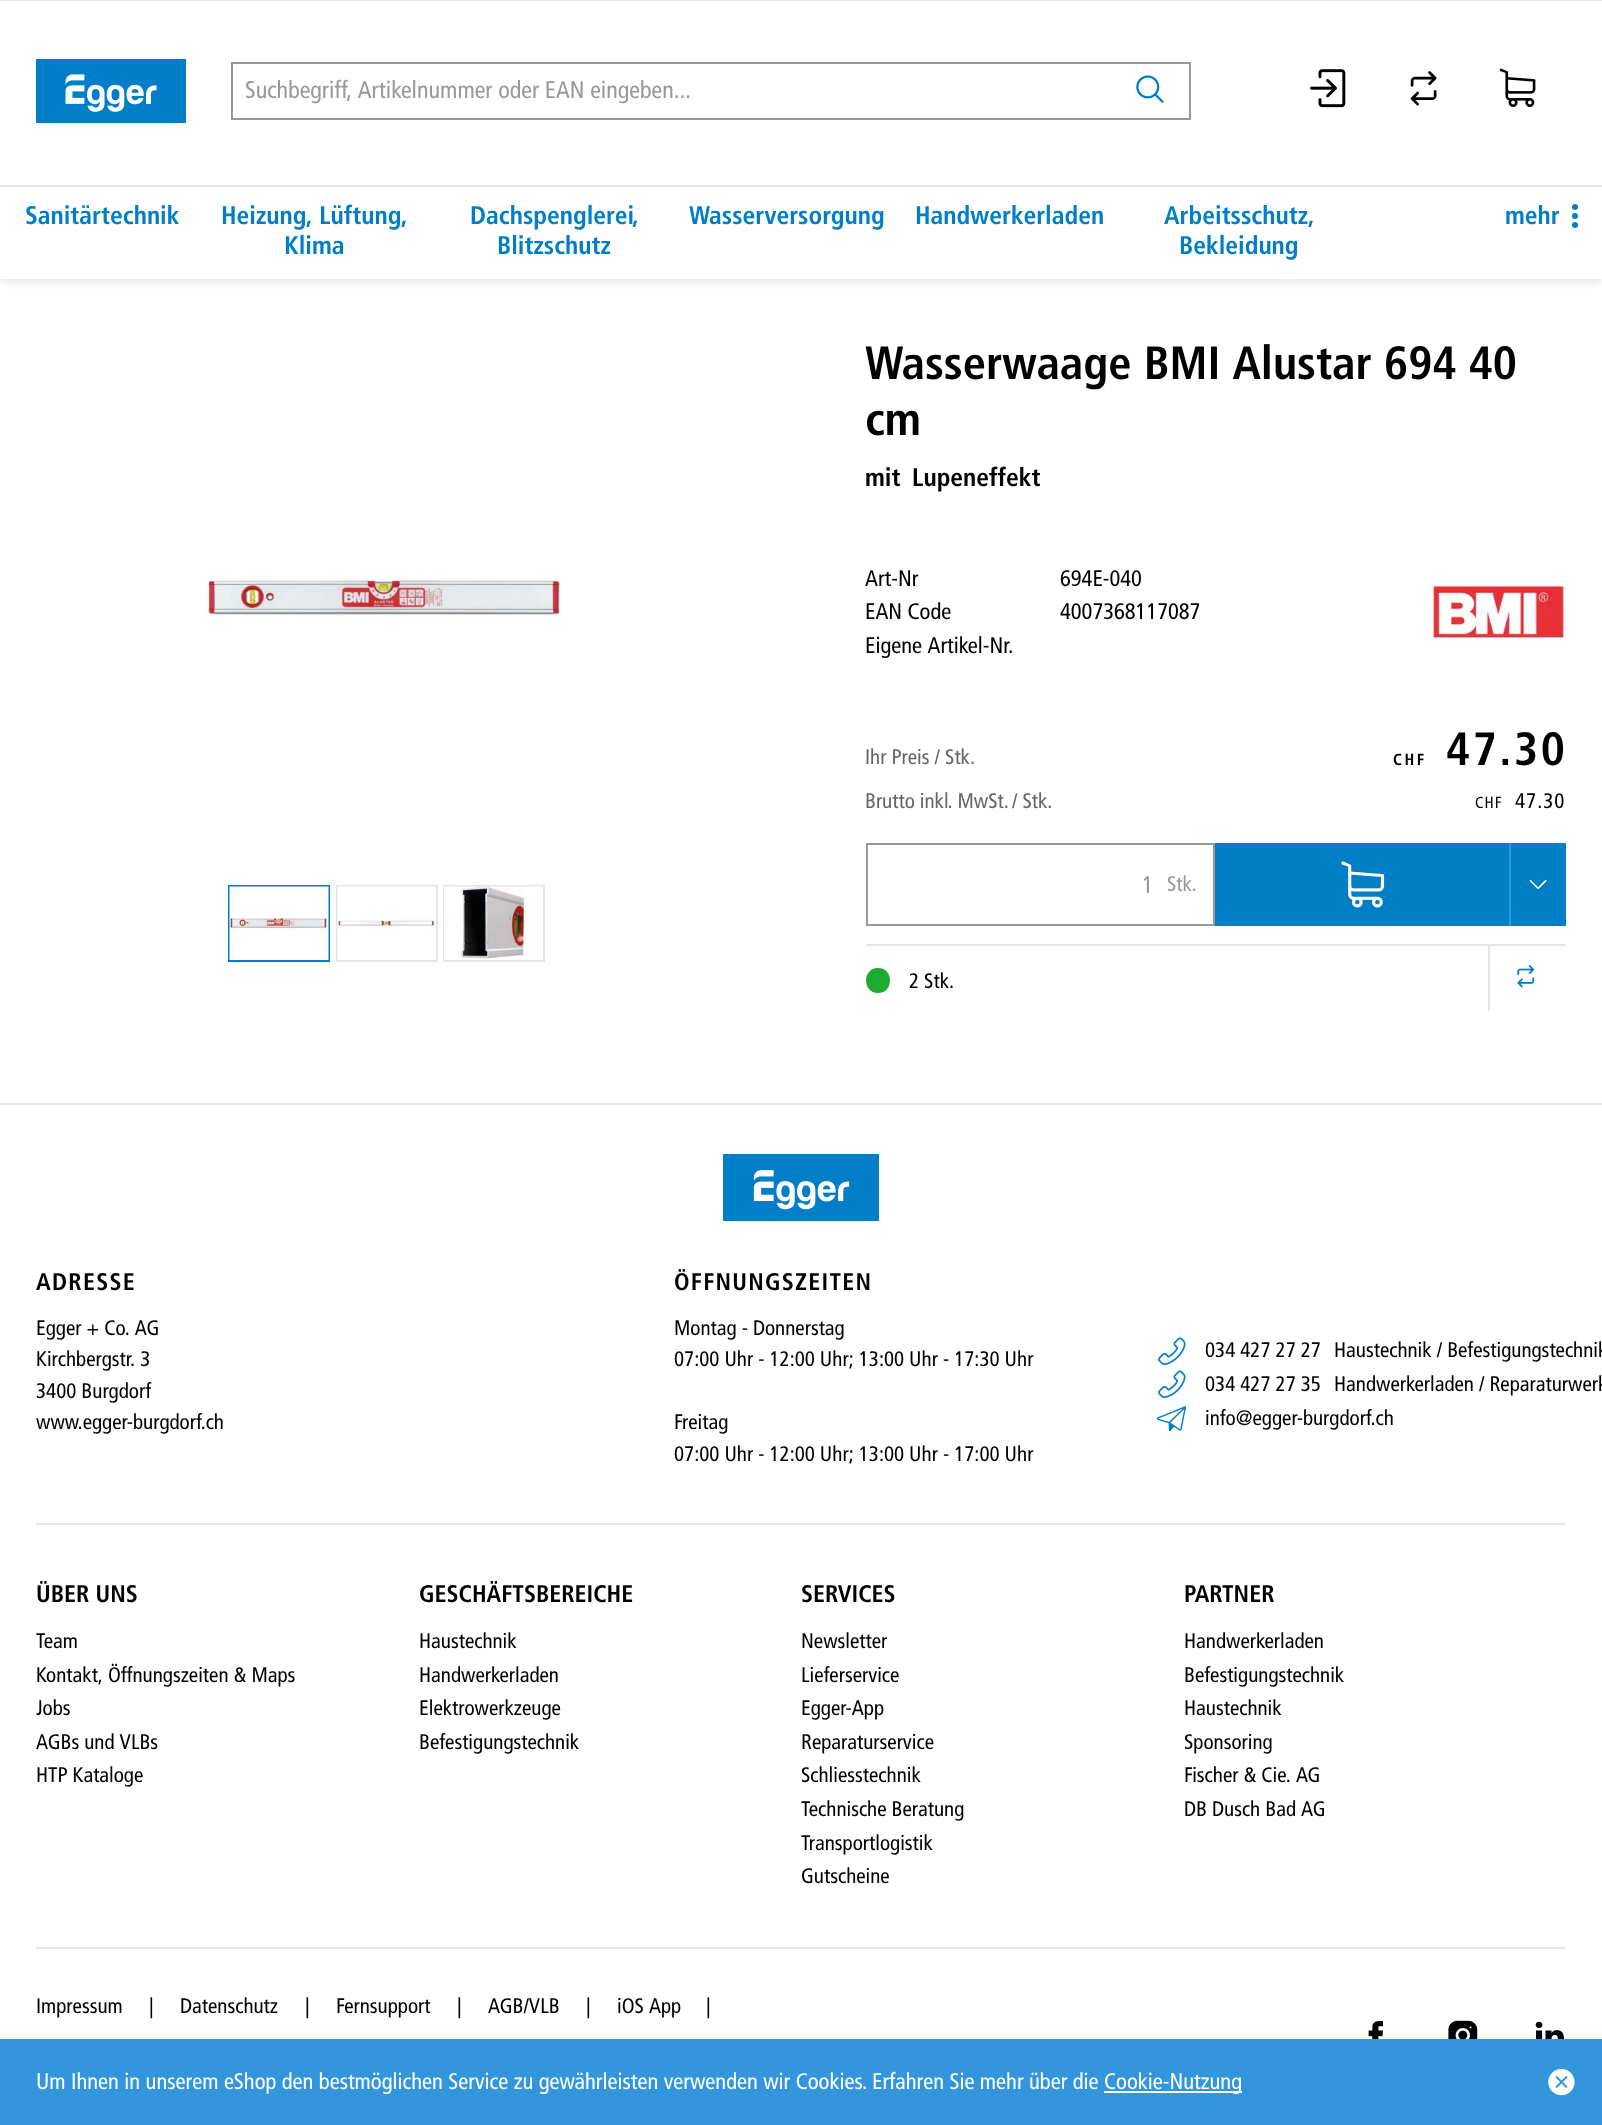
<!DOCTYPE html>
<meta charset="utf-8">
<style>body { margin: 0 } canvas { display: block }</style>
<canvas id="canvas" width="1602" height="2125"></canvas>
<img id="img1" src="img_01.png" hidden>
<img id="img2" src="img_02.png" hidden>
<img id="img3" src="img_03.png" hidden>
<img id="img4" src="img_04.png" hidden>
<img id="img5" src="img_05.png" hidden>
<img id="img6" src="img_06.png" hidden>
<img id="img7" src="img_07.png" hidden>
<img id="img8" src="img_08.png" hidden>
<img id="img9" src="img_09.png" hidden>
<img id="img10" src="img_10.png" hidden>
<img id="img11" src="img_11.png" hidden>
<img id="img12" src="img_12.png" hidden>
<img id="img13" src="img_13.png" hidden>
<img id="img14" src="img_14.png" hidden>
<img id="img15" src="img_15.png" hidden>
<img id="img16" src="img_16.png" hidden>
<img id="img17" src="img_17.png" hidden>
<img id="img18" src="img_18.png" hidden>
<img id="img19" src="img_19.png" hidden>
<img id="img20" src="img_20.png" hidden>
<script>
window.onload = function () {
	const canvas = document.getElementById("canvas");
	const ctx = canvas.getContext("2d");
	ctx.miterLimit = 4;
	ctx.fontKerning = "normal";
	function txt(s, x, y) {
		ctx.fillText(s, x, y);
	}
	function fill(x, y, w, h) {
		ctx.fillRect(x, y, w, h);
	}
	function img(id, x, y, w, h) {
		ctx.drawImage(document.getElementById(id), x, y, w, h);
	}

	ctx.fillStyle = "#FFFFFF";
	fill(0, 0, 1602, 2125);
	ctx.fillStyle = "rgba(1, 2, 2, 0.1)";
	ctx.filter = "blur(4.5px)";
	ctx.beginPath();
	ctx.rect(0, -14, 1602, 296);
	ctx.fill();
	ctx.filter = "none";
	ctx.fillStyle = "#FFFFFF";
	fill(0, 1, 1602, 278);
	ctx.fillStyle = "#E5E5E5";
	fill(0, 0, 1602, 1);
	img("img1", 36, 59, 150, 64);
	ctx.strokeStyle = "#999999";
	ctx.lineWidth = 2;
	ctx.strokeRect(232, 63, 958, 56);
	img("img2", 1136, 75, 28, 28);
	img("img3", 1310, 69, 36, 39);
	img("img4", 1410, 71, 27, 35);
	img("img5", 1499, 68, 37, 39);
	fill(0, 185, 1602, 2);
	ctx.fillStyle = "#007EC6";
	ctx.beginPath();
	ctx.arc(1575, 216, 3, 0, Math.PI * 2);
	ctx.fill();
	ctx.beginPath();
	ctx.arc(1575, 207, 3, 0, Math.PI * 2);
	ctx.fill();
	ctx.beginPath();
	ctx.arc(1575, 225, 3, 0, Math.PI * 2);
	ctx.fill();
	img("img6", 206, 578, 356, 39);
	ctx.strokeStyle = "#007EC6";
	ctx.strokeRect(229, 886, 100, 75);
	img("img7", 229, 886, 100, 74);
	ctx.strokeStyle = "#E5E5E5";
	ctx.strokeRect(337, 886, 100, 75);
	img("img8", 337, 886, 98, 74);
	ctx.strokeRect(444, 886, 100, 75);
	img("img9", 444, 886, 99, 74);
	img("img10", 1431, 581, 135, 61);
	ctx.strokeStyle = "#999999";
	ctx.strokeRect(867, 844, 347, 81);
	fill(1215, 843, 294, 83);
	img("img11", 1341, 861, 44, 47);
	ctx.fillStyle = "#3398D1";
	fill(1509, 843, 2, 83);
	ctx.fillStyle = "#007EC6";
	fill(1511, 843, 55, 83);
	img("img12", 1529, 880, 18, 9);
	ctx.fillStyle = "#E5E5E5";
	fill(866, 944, 700, 2);
	ctx.fillStyle = "#1FAA33";
	ctx.beginPath();
	ctx.moveTo(878, 968);
	ctx.bezierCurveTo(862, 968, 862, 993, 878, 993);
	ctx.bezierCurveTo(894, 993, 894, 968, 878, 968);
	ctx.closePath();
	ctx.fill();
	ctx.fillStyle = "#E5E5E5";
	ctx.beginPath();
	ctx.moveTo(1488, 1011);
	ctx.lineTo(1488, 945);
	ctx.lineTo(1490, 946);
	ctx.lineTo(1490, 1010);
	ctx.closePath();
	ctx.fill();
	img("img13", 1517, 965, 18, 23);
	fill(0, 1103, 1602, 2);
	img("img14", 723, 1154, 156, 67);
	img("img15", 1158, 1337, 28, 28);
	img("img15", 1158, 1370, 28, 28);
	img("img16", 1156, 1406, 31, 26);
	fill(36, 1523, 1530, 2);
	fill(36, 1947, 1530, 2);
	img("img17", 1368, 2021, 15, 18);
	img("img18", 1448, 2020, 30, 19);
	img("img19", 1535, 2021, 29, 18);
	ctx.fillStyle = "#3396DC";
	fill(0, 2039, 1602, 86);
	ctx.fillStyle = "#FFFFFF";
	fill(1104, 2091, 138, 2);
	img("img20", 1548, 2068, 27, 28);
	ctx.font = "24px Frutiger";
	ctx.fillStyle = "#999999";
	txt("Suchbegriff, Artikelnummer oder EAN eingeben...", 245, 98);
	ctx.font = "bold 25.5px Frutiger";
	ctx.fillStyle = "#007EC6";
	txt("Sanitärtechnik", 25, 224);
	txt("Heizung, Lüftung,", 221, 224);
	txt("Klima", 284, 254);
	txt("Dachspenglerei,", 470, 224);
	txt("Blitzschutz", 497, 254);
	txt("Wasserversorgung", 689, 224);
	txt("Handwerkerladen", 915, 224);
	txt("Arbeitsschutz,", 1164, 224);
	txt("Bekleidung", 1179, 254);
	txt("mehr", 1505, 224);
	ctx.font = "bold 46.5px Frutiger";
	ctx.fillStyle = "#000000";
	txt("Wasserwaage BMI Alustar 694 40", 865, 379);
	txt("cm", 865, 435);
	ctx.wordSpacing = "5px";
	ctx.font = "bold 25.5px Frutiger";
	txt("mit Lupeneffekt", 865, 486);
	ctx.wordSpacing = "0px";
	ctx.font = "22.5px Frutiger";
	txt("Art-Nr", 865, 586);
	txt("694E-040", 1060, 586);
	txt("EAN Code", 865, 619);
	txt("4007368117087", 1060, 619);
	txt("Eigene Artikel-Nr.", 865, 653);
	ctx.font = "21px Frutiger";
	ctx.fillStyle = "#666666";
	txt("Ihr Preis / Stk.", 865, 764);
	ctx.letterSpacing = "2.5px";
	ctx.font = "bold 16px Frutiger";
	ctx.fillStyle = "#000000";
	txt("CHF", 1393, 765);
	ctx.font = "bold 46.5px Frutiger";
	txt("47.30", 1446, 765);
	ctx.letterSpacing = "0px";
	ctx.font = "21px Frutiger";
	ctx.fillStyle = "#666666";
	txt("Brutto inkl. MwSt.", 865, 808);
	txt("/ Stk.", 1012, 808);
	ctx.letterSpacing = "1px";
	ctx.font = "16px Frutiger";
	ctx.fillStyle = "#000000";
	txt("CHF", 1475, 808);
	ctx.font = "21px Frutiger";
	txt("47.30", 1515, 808);
	ctx.letterSpacing = "0px";
	ctx.font = "24px Frutiger";
	ctx.fillStyle = "#999999";
	txt("1", 1142, 893);
	ctx.font = "21px Frutiger";
	txt("Stk.", 1167, 891);
	ctx.fillStyle = "#000000";
	txt("2 Stk.", 909, 988);
	ctx.letterSpacing = "1.25px";
	ctx.font = "bold 24px Frutiger";
	txt("ADRESSE", 36, 1290);
	ctx.letterSpacing = "0px";
	ctx.font = "21px Frutiger";
	txt("Egger + Co. AG", 36, 1335);
	txt("Kirchbergstr. 3", 36, 1366);
	txt("3400 Burgdorf", 36, 1398);
	txt("www.egger-burgdorf.ch", 36, 1429);
	ctx.letterSpacing = "1.25px";
	ctx.font = "bold 24px Frutiger";
	txt("ÖFFNUNGSZEITEN", 674, 1290);
	ctx.letterSpacing = "0px";
	ctx.font = "21px Frutiger";
	txt("Montag - Donnerstag", 674, 1335);
	txt("07:00 Uhr - 12:00 Uhr; 13:00 Uhr - 17:30 Uhr", 674, 1366);
	txt("Freitag", 674, 1429);
	txt("07:00 Uhr - 12:00 Uhr; 13:00 Uhr - 17:00 Uhr", 674, 1461);
	txt("034 427 27 27", 1205, 1357);
	txt("Haustechnik / Befestigungstechnik", 1334, 1357);
	txt("034 427 27 35", 1205, 1391);
	txt("Handwerkerladen / Reparaturwerk", 1334, 1391);
	txt("info@egger-burgdorf.ch", 1205, 1425);
	ctx.font = "bold 24px Frutiger";
	txt("ÜBER UNS", 36, 1602);
	ctx.font = "21px Frutiger";
	txt("Team", 36, 1648);
	txt("Kontakt, Öffnungszeiten & Maps", 36, 1682);
	txt("Jobs", 36, 1715);
	txt("AGBs und VLBs", 36, 1749);
	txt("HTP Kataloge", 36, 1782);
	ctx.font = "bold 24px Frutiger";
	txt("GESCHÄFTSBEREICHE", 419, 1602);
	ctx.font = "21px Frutiger";
	txt("Haustechnik", 419, 1648);
	txt("Handwerkerladen", 419, 1682);
	txt("Elektrowerkzeuge", 419, 1715);
	txt("Befestigungstechnik", 419, 1749);
	ctx.font = "bold 24px Frutiger";
	txt("SERVICES", 801, 1602);
	ctx.font = "21px Frutiger";
	txt("Newsletter", 801, 1648);
	txt("Lieferservice", 801, 1682);
	txt("Egger-App", 801, 1715);
	txt("Reparaturservice", 801, 1749);
	txt("Schliesstechnik", 801, 1782);
	txt("Technische Beratung", 801, 1816);
	txt("Transportlogistik", 801, 1850);
	txt("Gutscheine", 801, 1883);
	ctx.font = "bold 24px Frutiger";
	txt("PARTNER", 1184, 1602);
	ctx.font = "21px Frutiger";
	txt("Handwerkerladen", 1184, 1648);
	txt("Befestigungstechnik", 1184, 1682);
	txt("Haustechnik", 1184, 1715);
	txt("Sponsoring", 1184, 1749);
	txt("Fischer & Cie. AG", 1184, 1782);
	txt("DB Dusch Bad AG", 1184, 1816);
	txt("Impressum", 36, 2013);
	txt("|", 149, 2013);
	txt("Datenschutz", 180, 2013);
	txt("|", 305, 2013);
	txt("Fernsupport", 336, 2013);
	txt("|", 457, 2013);
	txt("AGB/VLB", 488, 2013);
	txt("|", 586, 2013);
	txt("iOS App", 617, 2013);
	txt("|", 706, 2013);
	ctx.font = "22.5px Frutiger";
	ctx.fillStyle = "#FFFFFF";
	txt("Um Ihnen in unserem eShop den bestmöglichen Service zu gewährleisten verwenden wir Cookies.", 36, 2089);
	txt("Erfahren Sie mehr über die", 872, 2089);
	txt("Cookie-Nutzung", 1104, 2089);
};
</script>
